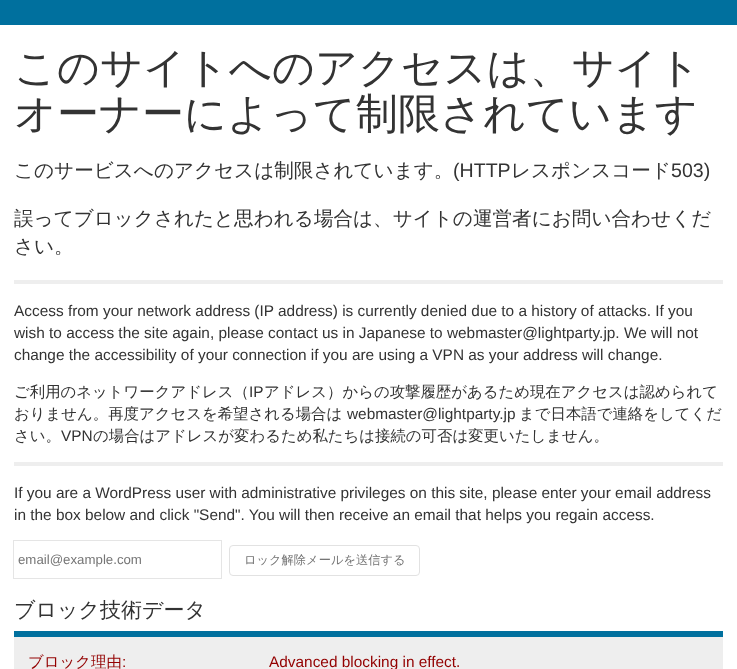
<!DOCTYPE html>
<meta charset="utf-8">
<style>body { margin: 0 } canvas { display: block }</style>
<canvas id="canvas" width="737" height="669"></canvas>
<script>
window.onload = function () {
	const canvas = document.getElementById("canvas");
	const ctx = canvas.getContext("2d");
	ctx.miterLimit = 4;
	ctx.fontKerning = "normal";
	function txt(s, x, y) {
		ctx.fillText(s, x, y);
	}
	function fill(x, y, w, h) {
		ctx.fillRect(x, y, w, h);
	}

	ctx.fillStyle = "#FFFFFF";
	fill(0, 0, 737, 669);
	ctx.fillStyle = "#00709E";
	fill(0, 0, 737, 25);
	ctx.fillStyle = "#EEEEEE";
	fill(14, 280, 709, 4);
	fill(14, 462, 709, 4);
	ctx.strokeStyle = "#E5E5E5";
	ctx.strokeRect(13.5, 540.5, 208, 38);
	ctx.beginPath();
	ctx.roundRect(229.5, 545.5, 190, 30, 3.5);
	ctx.strokeStyle = "#E2E2E2";
	ctx.stroke();
	ctx.fillStyle = "#00709E";
	fill(14, 631, 709, 6);
	ctx.fillStyle = "#EEEEEE";
	fill(14, 637, 709, 32);
	ctx.font = "500 42px WenQuanYi Zen Hei";
	ctx.fillStyle = "#333333";
	txt("このサイトへのアクセスは、サイト", 14, 82);
	txt("オーナーによって制限されています", 14, 128);
	ctx.font = "500 19.6px WenQuanYi Zen Hei";
	txt("このサービスへのアクセスは制限されています。", 14, 177);
	ctx.font = "19.6px Liberation Sans";
	txt("(HTTP", 453, 177);
	ctx.font = "500 19.6px WenQuanYi Zen Hei";
	txt("レスポンスコード", 511, 177);
	ctx.font = "19.6px Liberation Sans";
	txt("503)", 671, 177);
	ctx.font = "500 19.6px WenQuanYi Zen Hei";
	txt("誤ってブロックされたと思われる場合は、サイトの運営者にお問い合わせくだ", 14, 225);
	txt("さい。", 14, 253);
	ctx.font = "15.4px Liberation Sans";
	txt("Access from your network address (IP address) is currently denied due to a history of attacks. If you", 14, 316);
	txt("wish to access the site again, please contact us in Japanese to webmaster@lightparty.jp. We will not", 14, 338);
	txt("change the accessibility of your connection if you are using a VPN as your address will change.", 14, 360);
	ctx.font = "500 15.4px WenQuanYi Zen Hei";
	txt("ご利用のネットワークアドレス（", 14, 397);
	ctx.font = "15.4px Liberation Sans";
	txt("IP", 249, 397);
	ctx.font = "500 15.4px WenQuanYi Zen Hei";
	txt("アドレス）からの攻撃履歴があるため現在アクセスは認められて", 264, 397);
	txt("おりません。再度アクセスを希望される場合は", 14, 419);
	ctx.font = "15.4px Liberation Sans";
	txt("webmaster@lightparty.jp", 347, 419);
	ctx.font = "500 15.4px WenQuanYi Zen Hei";
	txt("まで日本語で連絡をしてくだ", 519, 419);
	txt("さい。", 14, 441);
	ctx.font = "15.4px Liberation Sans";
	txt("VPN", 61, 441);
	ctx.font = "500 15.4px WenQuanYi Zen Hei";
	txt("の場合はアドレスが変わるため私たちは接続の可否は変更いたしません。", 93, 441);
	ctx.font = "15.4px Liberation Sans";
	txt("If you are a WordPress user with administrative privileges on this site, please enter your email address", 14, 498);
	txt("in the box below and click \"Send\". You will then receive an email that helps you regain access.", 14, 520);
	ctx.font = "13.25px Liberation Sans";
	ctx.fillStyle = "#757575";
	txt("email@example.com", 18, 564);
	ctx.font = "500 12.25px WenQuanYi Zen Hei";
	txt("ロック解除メールを送信する", 244, 564);
	ctx.font = "500 21px WenQuanYi Zen Hei";
	ctx.fillStyle = "#333333";
	txt("ブロック技術データ", 14, 617);
	ctx.font = "500 15.4px WenQuanYi Zen Hei";
	ctx.fillStyle = "#930000";
	txt("ブロック理由", 28, 667);
	ctx.font = "15.4px Liberation Sans";
	txt(":", 122, 667);
	txt("Advanced blocking in effect.", 269, 667);
};
</script>
